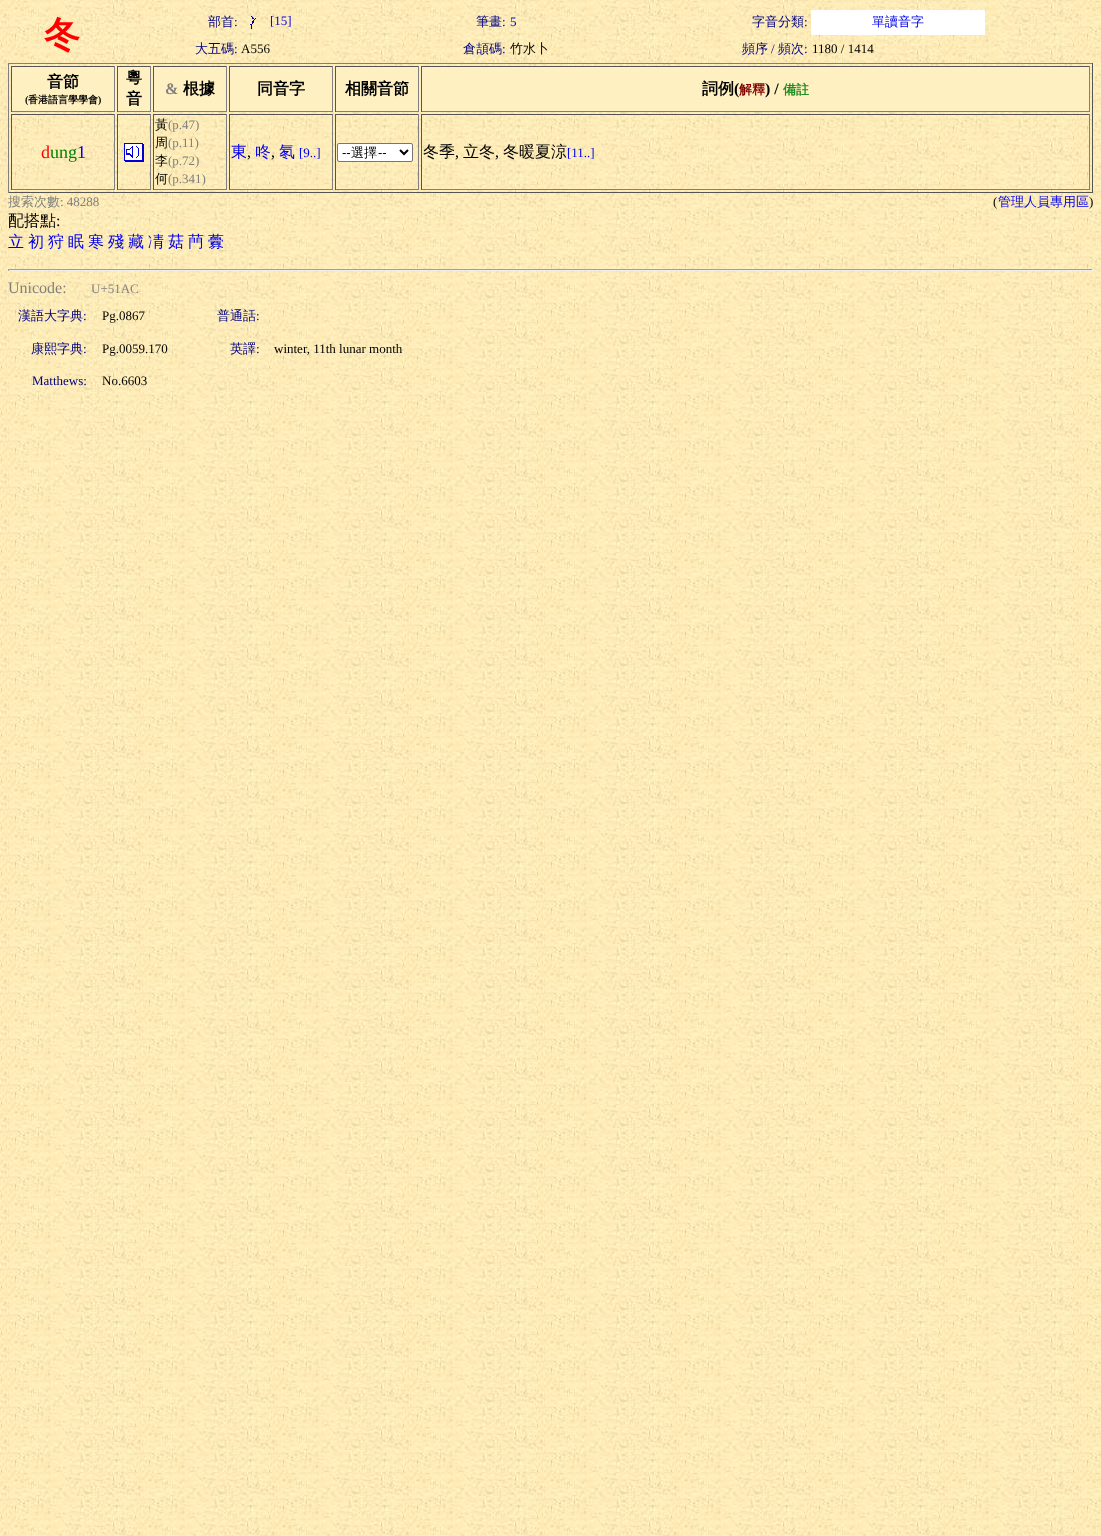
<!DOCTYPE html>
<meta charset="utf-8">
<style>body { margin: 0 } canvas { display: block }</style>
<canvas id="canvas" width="1101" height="1536"></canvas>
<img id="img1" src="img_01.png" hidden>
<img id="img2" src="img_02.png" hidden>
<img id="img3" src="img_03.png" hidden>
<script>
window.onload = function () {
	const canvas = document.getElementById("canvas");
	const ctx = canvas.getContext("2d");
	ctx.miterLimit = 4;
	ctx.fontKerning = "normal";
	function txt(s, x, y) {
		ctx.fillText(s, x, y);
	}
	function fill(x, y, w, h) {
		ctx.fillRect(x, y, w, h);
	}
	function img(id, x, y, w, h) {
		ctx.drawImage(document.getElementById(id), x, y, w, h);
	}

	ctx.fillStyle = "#FFFFFF";
	fill(0, 0, 1101, 1536);
	img("img1", 0, 0, 1101, 1536);
	img("img2", 250, 16, 6, 13);
	fill(811, 10, 174, 25);
	ctx.fillStyle = "#808080";
	fill(8, 63, 1085, 1);
	ctx.fillStyle = "#555555";
	fill(1092, 63, 1, 130);
	fill(8, 192, 1085, 1);
	ctx.fillStyle = "#808080";
	fill(8, 63, 1, 130);
	ctx.fillStyle = "#FFF0C2";
	fill(12, 66, 1077, 46);
	ctx.fillStyle = "#555555";
	fill(11, 66, 104, 1);
	ctx.fillStyle = "#808080";
	fill(114, 66, 1, 46);
	fill(11, 111, 104, 1);
	ctx.fillStyle = "#555555";
	fill(11, 66, 1, 46);
	fill(117, 66, 34, 1);
	ctx.fillStyle = "#808080";
	fill(150, 66, 1, 46);
	fill(117, 111, 34, 1);
	ctx.fillStyle = "#555555";
	fill(117, 66, 1, 46);
	fill(153, 66, 74, 1);
	ctx.fillStyle = "#808080";
	fill(226, 66, 1, 46);
	fill(153, 111, 74, 1);
	ctx.fillStyle = "#555555";
	fill(153, 66, 1, 46);
	fill(229, 66, 104, 1);
	ctx.fillStyle = "#808080";
	fill(332, 66, 1, 46);
	fill(229, 111, 104, 1);
	ctx.fillStyle = "#555555";
	fill(229, 66, 1, 46);
	fill(335, 66, 84, 1);
	ctx.fillStyle = "#808080";
	fill(418, 66, 1, 46);
	fill(335, 111, 84, 1);
	ctx.fillStyle = "#555555";
	fill(335, 66, 1, 46);
	fill(421, 66, 669, 1);
	ctx.fillStyle = "#808080";
	fill(1089, 66, 1, 46);
	fill(421, 111, 669, 1);
	ctx.fillStyle = "#555555";
	fill(421, 66, 1, 46);
	fill(11, 114, 104, 1);
	ctx.fillStyle = "#808080";
	fill(114, 114, 1, 76);
	fill(11, 189, 104, 1);
	ctx.fillStyle = "#555555";
	fill(11, 114, 1, 76);
	fill(117, 114, 34, 1);
	ctx.fillStyle = "#808080";
	fill(150, 114, 1, 76);
	fill(117, 189, 34, 1);
	ctx.fillStyle = "#555555";
	fill(117, 114, 1, 76);
	img("img3", 124, 143, 20, 19);
	fill(153, 114, 74, 1);
	ctx.fillStyle = "#808080";
	fill(226, 114, 1, 76);
	fill(153, 189, 74, 1);
	ctx.fillStyle = "#555555";
	fill(153, 114, 1, 76);
	fill(229, 114, 104, 1);
	ctx.fillStyle = "#808080";
	fill(332, 114, 1, 76);
	fill(229, 189, 104, 1);
	ctx.fillStyle = "#555555";
	fill(229, 114, 1, 76);
	fill(335, 114, 84, 1);
	ctx.fillStyle = "#808080";
	fill(418, 114, 1, 76);
	fill(335, 189, 84, 1);
	ctx.fillStyle = "#555555";
	fill(335, 114, 1, 76);
	ctx.fillStyle = "#FFFFFF";
	ctx.beginPath();
	ctx.roundRect(337.5, 143.5, 75, 18, 1.5);
	ctx.fill();
	ctx.strokeStyle = "#767676";
	ctx.stroke();
	ctx.beginPath();
	ctx.moveTo(400, 150);
	ctx.lineTo(404, 154);
	ctx.lineTo(408, 150);
	ctx.strokeStyle = "#000000";
	ctx.lineWidth = 2;
	ctx.stroke();
	ctx.fillStyle = "#555555";
	fill(421, 114, 669, 1);
	ctx.fillStyle = "#808080";
	fill(1089, 114, 1, 76);
	fill(421, 189, 669, 1);
	ctx.fillStyle = "#555555";
	fill(421, 114, 1, 76);
	ctx.fillStyle = "#9F9F9F";
	fill(8, 269, 1085, 1);
	ctx.fillStyle = "#EEEEEE";
	fill(1092, 269, 1, 2);
	fill(8, 270, 1085, 1);
	ctx.fillStyle = "#9F9F9F";
	fill(8, 269, 1, 2);
	ctx.font = "bold 36px WenQuanYi Zen Hei";
	ctx.fillStyle = "#FF0000";
	txt("冬", 44, 47);
	ctx.font = "500 13px WenQuanYi Zen Hei";
	ctx.fillStyle = "#000080";
	txt("部首", 208, 26);
	ctx.font = "13px Liberation Serif";
	txt(":", 234, 26);
	ctx.fillStyle = "#0000EE";
	txt("[15]", 270, 25);
	ctx.font = "500 13px WenQuanYi Zen Hei";
	ctx.fillStyle = "#000080";
	txt("筆畫", 476, 26);
	ctx.font = "13px Liberation Serif";
	txt(":", 502, 26);
	ctx.fillStyle = "#0000EE";
	txt("5", 510, 26);
	ctx.font = "500 13px WenQuanYi Zen Hei";
	ctx.fillStyle = "#000080";
	txt("字音分類", 752, 26);
	ctx.font = "13px Liberation Serif";
	txt(":", 804, 26);
	ctx.font = "500 13px WenQuanYi Zen Hei";
	ctx.fillStyle = "#0000EE";
	txt("單讀音字", 872, 26);
	ctx.fillStyle = "#000080";
	txt("大五碼", 195, 53);
	ctx.font = "13px Liberation Serif";
	txt(":", 234, 53);
	ctx.fillStyle = "#000000";
	txt("A556", 241, 53);
	ctx.font = "500 13px WenQuanYi Zen Hei";
	ctx.fillStyle = "#000080";
	txt("倉頡碼", 463, 53);
	ctx.font = "13px Liberation Serif";
	txt(":", 502, 53);
	ctx.font = "500 13px WenQuanYi Zen Hei";
	ctx.fillStyle = "#000000";
	txt("竹水卜", 510, 53);
	ctx.fillStyle = "#000080";
	txt("頻序", 742, 53);
	ctx.font = "13px Liberation Serif";
	txt("/", 771, 53);
	ctx.font = "500 13px WenQuanYi Zen Hei";
	txt("頻次", 778, 53);
	ctx.font = "13px Liberation Serif";
	txt(":", 804, 53);
	ctx.fillStyle = "#000000";
	txt("1180 / 1414", 812, 53);
	ctx.font = "bold 16px WenQuanYi Zen Hei";
	txt("音節", 47, 87);
	ctx.font = "bold 10px Liberation Serif";
	txt("(", 25, 103);
	ctx.font = "bold 10px WenQuanYi Zen Hei";
	txt("香港語言學學會", 28, 103);
	ctx.font = "bold 10px Liberation Serif";
	txt(")", 98, 103);
	ctx.font = "bold 16px WenQuanYi Zen Hei";
	txt("粵", 126, 83);
	txt("音", 126, 104);
	ctx.font = "bold 16px Liberation Serif";
	ctx.fillStyle = "#808080";
	txt("&", 165, 94);
	ctx.font = "bold 16px WenQuanYi Zen Hei";
	ctx.fillStyle = "#000000";
	txt("根據", 183, 94);
	txt("同音字", 257, 94);
	txt("相關音節", 345, 94);
	txt("詞例", 702, 94);
	ctx.font = "bold 16px Liberation Serif";
	txt("(", 734, 94);
	ctx.font = "bold 13px WenQuanYi Zen Hei";
	ctx.fillStyle = "#800000";
	txt("解釋", 739, 94);
	ctx.font = "bold 16px Liberation Serif";
	ctx.fillStyle = "#000000";
	txt(") /", 765, 94);
	ctx.font = "bold 13px WenQuanYi Zen Hei";
	ctx.fillStyle = "#228B22";
	txt("備註", 783, 94);
	ctx.font = "18px Liberation Serif";
	ctx.fillStyle = "#FF0000";
	txt("d", 41, 158);
	ctx.fillStyle = "#008000";
	txt("ung", 50, 158);
	ctx.fillStyle = "#0000FF";
	txt("1", 77, 158);
	ctx.font = "500 13px WenQuanYi Zen Hei";
	ctx.fillStyle = "#000000";
	txt("黃", 155, 129);
	ctx.font = "13px Liberation Serif";
	ctx.fillStyle = "#808080";
	txt("(p.47)", 168, 129);
	ctx.font = "500 13px WenQuanYi Zen Hei";
	ctx.fillStyle = "#000000";
	txt("周", 155, 147);
	ctx.font = "13px Liberation Serif";
	ctx.fillStyle = "#808080";
	txt("(p.11)", 168, 147);
	ctx.font = "500 13px WenQuanYi Zen Hei";
	ctx.fillStyle = "#000000";
	txt("李", 155, 165);
	ctx.font = "13px Liberation Serif";
	ctx.fillStyle = "#808080";
	txt("(p.72)", 168, 165);
	ctx.font = "500 13px WenQuanYi Zen Hei";
	ctx.fillStyle = "#000000";
	txt("何", 155, 183);
	ctx.font = "13px Liberation Serif";
	ctx.fillStyle = "#808080";
	txt("(p.341)", 168, 183);
	ctx.font = "500 16px WenQuanYi Zen Hei";
	ctx.fillStyle = "#0000EE";
	txt("東", 231, 157);
	ctx.font = "16px Liberation Serif";
	ctx.fillStyle = "#000000";
	txt(",", 247, 157);
	ctx.font = "500 16px WenQuanYi Zen Hei";
	ctx.fillStyle = "#0000EE";
	txt("咚", 255, 157);
	ctx.font = "16px Liberation Serif";
	ctx.fillStyle = "#000000";
	txt(",", 271, 157);
	ctx.font = "500 16px WenQuanYi Zen Hei";
	ctx.fillStyle = "#0000EE";
	txt("氡", 279, 157);
	ctx.font = "13px Liberation Serif";
	txt("[9..]", 299, 157);
	ctx.font = "13px Liberation Sans";
	ctx.fillStyle = "#000000";
	txt("--", 342, 157);
	ctx.font = "500 13px WenQuanYi Zen Hei";
	txt("選擇", 351, 157);
	ctx.font = "13px Liberation Sans";
	txt("--", 378, 157);
	ctx.font = "500 16px WenQuanYi Zen Hei";
	txt("冬季", 423, 157);
	ctx.font = "16px Liberation Serif";
	txt(",", 455, 157);
	ctx.font = "500 16px WenQuanYi Zen Hei";
	txt("立冬", 463, 157);
	ctx.font = "16px Liberation Serif";
	txt(",", 495, 157);
	ctx.font = "500 16px WenQuanYi Zen Hei";
	txt("冬暖夏涼", 503, 157);
	ctx.font = "13px Liberation Serif";
	ctx.fillStyle = "#0000EE";
	txt("[11..]", 567, 157);
	ctx.font = "500 13px WenQuanYi Zen Hei";
	ctx.fillStyle = "#808080";
	txt("搜索次數", 8, 206);
	ctx.font = "13px Liberation Serif";
	txt(": 48288", 60, 206);
	ctx.fillStyle = "#000000";
	txt("(", 993, 206);
	ctx.font = "500 13px WenQuanYi Zen Hei";
	ctx.fillStyle = "#0000EE";
	txt("管理人員專用區", 998, 206);
	ctx.font = "13px Liberation Serif";
	ctx.fillStyle = "#000000";
	txt(")", 1089, 206);
	ctx.font = "500 16px WenQuanYi Zen Hei";
	txt("配搭點", 8, 226);
	ctx.font = "16px Liberation Serif";
	txt(":", 56, 226);
	ctx.font = "500 16px WenQuanYi Zen Hei";
	ctx.fillStyle = "#0000EE";
	txt("立", 8, 247);
	txt("初", 28, 247);
	txt("狩", 48, 247);
	txt("眠", 68, 247);
	txt("寒", 88, 247);
	txt("殘", 108, 247);
	txt("藏", 128, 247);
	txt("凊", 148, 247);
	txt("菇", 168, 247);
	txt("菛", 188, 247);
	txt("虋", 208, 247);
	ctx.font = "16px Liberation Serif";
	ctx.fillStyle = "#808080";
	txt("Unicode:", 8, 293);
	ctx.font = "13px Liberation Serif";
	txt("U+51AC", 91, 293);
	ctx.font = "500 13px WenQuanYi Zen Hei";
	ctx.fillStyle = "#000080";
	txt("漢語大字典", 18, 320);
	ctx.font = "13px Liberation Serif";
	txt(":", 83, 320);
	ctx.fillStyle = "#000000";
	txt("Pg.0867", 102, 320);
	ctx.font = "500 13px WenQuanYi Zen Hei";
	ctx.fillStyle = "#000080";
	txt("普通話", 217, 320);
	ctx.font = "13px Liberation Serif";
	txt(":", 256, 320);
	ctx.font = "500 13px WenQuanYi Zen Hei";
	txt("康熙字典", 31, 353);
	ctx.font = "13px Liberation Serif";
	txt(":", 83, 353);
	ctx.fillStyle = "#000000";
	txt("Pg.0059.170", 102, 353);
	ctx.font = "500 13px WenQuanYi Zen Hei";
	ctx.fillStyle = "#000080";
	txt("英譯", 230, 353);
	ctx.font = "13px Liberation Serif";
	txt(":", 256, 353);
	ctx.fillStyle = "#000000";
	txt("winter, 11th lunar month", 274, 353);
	ctx.fillStyle = "#000080";
	txt("Matthews:", 32, 385);
	ctx.fillStyle = "#000000";
	txt("No.6603", 102, 385);
};
</script>
